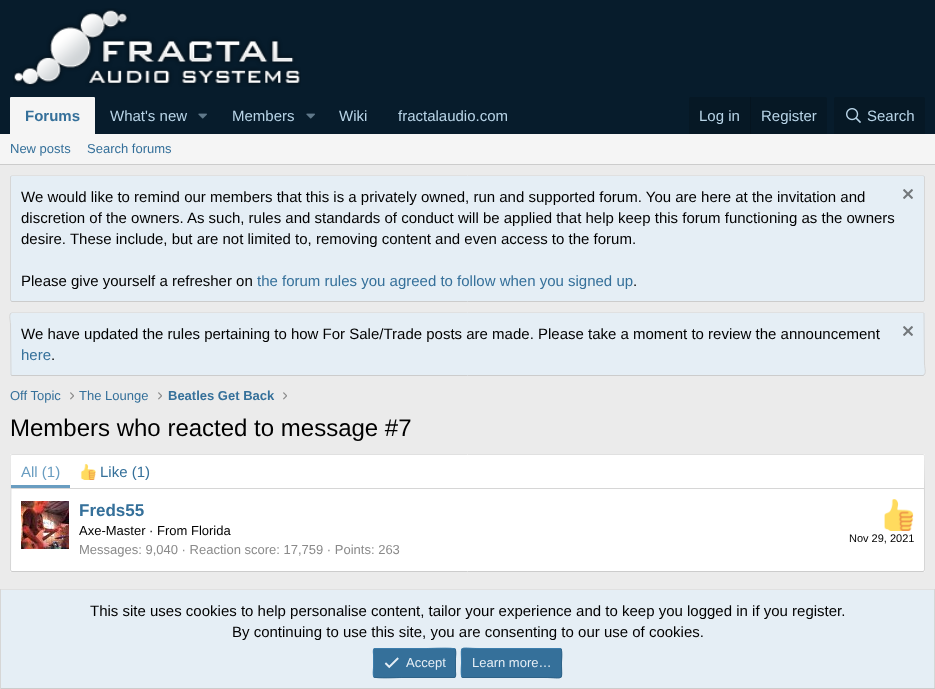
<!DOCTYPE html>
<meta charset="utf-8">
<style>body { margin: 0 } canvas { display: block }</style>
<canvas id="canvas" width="935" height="689"></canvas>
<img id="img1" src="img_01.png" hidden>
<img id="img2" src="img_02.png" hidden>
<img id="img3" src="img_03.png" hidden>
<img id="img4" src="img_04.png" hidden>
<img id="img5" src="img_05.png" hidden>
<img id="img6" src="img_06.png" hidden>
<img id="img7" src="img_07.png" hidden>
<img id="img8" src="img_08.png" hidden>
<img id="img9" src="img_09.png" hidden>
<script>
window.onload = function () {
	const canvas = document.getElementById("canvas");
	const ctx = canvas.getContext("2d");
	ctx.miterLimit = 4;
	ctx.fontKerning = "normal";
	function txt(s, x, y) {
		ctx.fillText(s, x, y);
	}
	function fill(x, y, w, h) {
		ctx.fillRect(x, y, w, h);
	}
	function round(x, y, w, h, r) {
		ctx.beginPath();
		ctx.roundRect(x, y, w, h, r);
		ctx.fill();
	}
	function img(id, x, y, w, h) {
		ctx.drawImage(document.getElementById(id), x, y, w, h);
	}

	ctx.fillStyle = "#EBEBEB";
	fill(0, 0, 935, 689);
	ctx.fillStyle = "#071C2C";
	fill(0, 0, 935, 134);
	img("img1", 13, 8, 288, 79);
	ctx.fillStyle = "#F5F5F5";
	ctx.beginPath();
	ctx.roundRect(10, 97, 85, 37, [1, 1, 0, 0]);
	ctx.fill();
	img("img2", 198, 113, 9, 6);
	img("img2", 306, 113, 9, 6);
	ctx.fillStyle = "#061825";
	ctx.beginPath();
	ctx.roundRect(689, 97, 138, 37, [2, 2, 0, 0]);
	ctx.fill();
	ctx.fillStyle = "#05141F";
	fill(750, 97, 1, 37);
	ctx.fillStyle = "#061825";
	ctx.beginPath();
	ctx.roundRect(834, 97, 91, 37, [2, 2, 0, 0]);
	ctx.fill();
	img("img3", 846, 108, 15, 15);
	ctx.fillStyle = "#F5F5F5";
	fill(0, 134, 935, 30);
	ctx.fillStyle = "#CCCCCC";
	fill(0, 164, 935, 1);
	ctx.fillStyle = "#E5EEF5";
	round(10, 175, 915, 127, 2);
	ctx.beginPath();
	ctx.moveTo(11, 176);
	ctx.lineTo(12, 175.5);
	ctx.lineTo(923, 175.5);
	ctx.lineTo(924, 176);
	ctx.strokeStyle = "#E0E0E0";
	ctx.stroke();
	ctx.beginPath();
	ctx.moveTo(924, 176);
	ctx.lineTo(924.5, 177);
	ctx.lineTo(924.5, 300);
	ctx.lineTo(924, 301);
	ctx.strokeStyle = "#D6D6D6";
	ctx.stroke();
	ctx.beginPath();
	ctx.moveTo(924, 301);
	ctx.lineTo(923, 301.5);
	ctx.lineTo(12, 301.5);
	ctx.lineTo(11, 301);
	ctx.strokeStyle = "#CCCCCC";
	ctx.stroke();
	ctx.beginPath();
	ctx.moveTo(11, 301);
	ctx.lineTo(10.5, 300);
	ctx.lineTo(10.5, 177);
	ctx.lineTo(11, 176);
	ctx.strokeStyle = "#D6D6D6";
	ctx.stroke();
	img("img4", 903, 189, 10, 10);
	round(10, 312, 915, 64, 2);
	ctx.beginPath();
	ctx.moveTo(11, 313);
	ctx.lineTo(12, 312.5);
	ctx.lineTo(923, 312.5);
	ctx.lineTo(924, 313);
	ctx.strokeStyle = "#E0E0E0";
	ctx.stroke();
	ctx.beginPath();
	ctx.moveTo(924, 313);
	ctx.lineTo(924.5, 364);
	ctx.bezierCurveTo(924.5, 367.5, 926.5, 372.5, 924, 375);
	ctx.strokeStyle = "#D6D6D6";
	ctx.stroke();
	ctx.beginPath();
	ctx.moveTo(924, 375);
	ctx.lineTo(923, 375.5);
	ctx.lineTo(12, 375.5);
	ctx.lineTo(11, 375);
	ctx.strokeStyle = "#CCCCCC";
	ctx.stroke();
	ctx.beginPath();
	ctx.moveTo(11, 375);
	ctx.lineTo(10.5, 324);
	ctx.bezierCurveTo(10.5, 320.5, 8.5, 315.5, 11, 313);
	ctx.strokeStyle = "#D6D6D6";
	ctx.stroke();
	img("img4", 903, 326, 10, 10);
	img("img5", 70, 392, 4, 8);
	img("img5", 158, 392, 4, 8);
	img("img5", 283, 392, 4, 8);
	ctx.fillStyle = "#FFFFFF";
	round(10, 454, 915, 118, 2);
	ctx.beginPath();
	ctx.moveTo(11, 455);
	ctx.lineTo(12, 454.5);
	ctx.lineTo(923, 454.5);
	ctx.lineTo(924, 455);
	ctx.strokeStyle = "#E0E0E0";
	ctx.stroke();
	ctx.beginPath();
	ctx.moveTo(924, 455);
	ctx.lineTo(924.5, 494);
	ctx.lineTo(924.5, 570);
	ctx.lineTo(924, 571);
	ctx.strokeStyle = "#D6D6D6";
	ctx.stroke();
	ctx.beginPath();
	ctx.moveTo(924, 571);
	ctx.lineTo(923, 571.5);
	ctx.lineTo(12, 571.5);
	ctx.lineTo(11, 571);
	ctx.strokeStyle = "#CCCCCC";
	ctx.stroke();
	ctx.beginPath();
	ctx.moveTo(11, 571);
	ctx.lineTo(10.5, 570);
	ctx.lineTo(11, 455);
	ctx.strokeStyle = "#D6D6D6";
	ctx.stroke();
	ctx.beginPath();
	ctx.roundRect(11, 455, 913, 34, [1, 1, 0, 0]);
	ctx.fill();
	ctx.fillStyle = "#D6D6D6";
	fill(11, 488, 913, 1);
	ctx.fillStyle = "#699DC1";
	fill(11, 485, 59, 3);
	img("img6", 80, 464, 16, 16);
	img("img7", 21, 501, 48, 48);
	img("img8", 884, 499, 30, 32);
	ctx.fillStyle = "#E5EEF5";
	fill(1, 590, 933, 98);
	ctx.fillStyle = "#E0E0E0";
	fill(0, 589, 935, 1);
	ctx.fillStyle = "#D6D6D6";
	fill(934, 589, 1, 100);
	ctx.fillStyle = "#CCCCCC";
	fill(0, 688, 935, 1);
	ctx.fillStyle = "#D6D6D6";
	fill(0, 589, 1, 100);
	ctx.fillStyle = "#35709A";
	round(373, 648, 83, 30, 2);
	ctx.beginPath();
	ctx.moveTo(455, 649);
	ctx.bezierCurveTo(456.5, 650.5, 455.5, 656.5, 455.5, 658.5);
	ctx.lineTo(455.5, 671.5);
	ctx.bezierCurveTo(455.5, 672.5, 456.5, 677.5, 454, 677.5);
	ctx.lineTo(401.5, 677.5);
	ctx.bezierCurveTo(399, 677.5, 375.5, 678.5, 374, 677);
	ctx.strokeStyle = "#2E6287";
	ctx.stroke();
	ctx.beginPath();
	ctx.moveTo(374, 677);
	ctx.bezierCurveTo(372.5, 675.5, 373.5, 669.5, 373.5, 667.5);
	ctx.lineTo(373.5, 654.5);
	ctx.bezierCurveTo(373.5, 653.5, 372.5, 648.5, 375, 648.5);
	ctx.lineTo(427.5, 648.5);
	ctx.bezierCurveTo(430, 648.5, 453.5, 647.5, 455, 649);
	ctx.strokeStyle = "#3C7EAD";
	ctx.stroke();
	img("img9", 384, 657, 15, 12);
	round(461, 648, 101, 30, 2);
	ctx.beginPath();
	ctx.moveTo(561, 649);
	ctx.bezierCurveTo(562.5, 650.5, 561.5, 661, 561.5, 663);
	ctx.bezierCurveTo(561.5, 682, 565, 677.5, 544, 677.5);
	ctx.lineTo(463, 677.5);
	ctx.lineTo(462, 677);
	ctx.strokeStyle = "#2E6287";
	ctx.stroke();
	ctx.beginPath();
	ctx.moveTo(462, 677);
	ctx.bezierCurveTo(460.5, 675.5, 461.5, 665, 461.5, 663);
	ctx.bezierCurveTo(461.5, 644, 458, 648.5, 479, 648.5);
	ctx.lineTo(560, 648.5);
	ctx.lineTo(561, 649);
	ctx.strokeStyle = "#3C7EAD";
	ctx.stroke();
	ctx.font = "bold 15px Liberation Sans";
	txt("Forums", 25, 121);
	ctx.font = "15px Liberation Sans";
	ctx.fillStyle = "#B8D4E7";
	txt("What's new", 110, 121);
	txt("Members", 232, 121);
	txt("Wiki", 339, 121);
	txt("fractalaudio.com", 398, 121);
	txt("Log in", 699, 121);
	txt("Register", 761, 121);
	txt("Search", 867, 121);
	ctx.font = "13px Liberation Sans";
	ctx.fillStyle = "#35709A";
	txt("New posts", 10, 153);
	txt("Search forums", 87, 153);
	ctx.font = "15px Liberation Sans";
	ctx.fillStyle = "#000000";
	txt("We would like to remind our members that this is a privately owned, run and supported forum. You are here at the invitation and", 21, 202);
	txt("discretion of the owners. As such, rules and standards of conduct will be applied that help keep this forum functioning as the owners", 21, 223);
	txt("desire. These include, but are not limited to, removing content and even access to the forum.", 21, 244);
	txt("Please give yourself a refresher on", 21, 286);
	ctx.fillStyle = "#35709A";
	txt("the forum rules you agreed to follow when you signed up", 257, 286);
	ctx.fillStyle = "#000000";
	txt(".", 633, 286);
	txt("We have updated the rules pertaining to how For Sale/Trade posts are made. Please take a moment to review the announcement", 21, 339);
	ctx.fillStyle = "#35709A";
	txt("here", 21, 360);
	ctx.fillStyle = "#000000";
	txt(".", 51, 360);
	ctx.font = "13px Liberation Sans";
	ctx.fillStyle = "#35709A";
	txt("Off Topic", 10, 400);
	txt("The Lounge", 79, 400);
	ctx.font = "bold 13px Liberation Sans";
	txt("Beatles Get Back", 168, 400);
	ctx.font = "24px Liberation Sans";
	ctx.fillStyle = "#000000";
	txt("Members who reacted to message #7", 10, 436);
	ctx.font = "15px Liberation Sans";
	ctx.fillStyle = "#699DC1";
	txt("All (1)", 21, 477);
	ctx.fillStyle = "#35709A";
	txt("Like (1)", 100, 477);
	ctx.font = "bold 17px Liberation Sans";
	txt("Freds55", 79, 516);
	ctx.font = "13px Liberation Sans";
	ctx.fillStyle = "#000000";
	txt("Axe-Master · From Florida", 79, 535);
	ctx.font = "11px Liberation Sans";
	txt("Nov 29, 2021", 849, 542);
	ctx.font = "13px Liberation Sans";
	ctx.fillStyle = "#8A8A8A";
	txt("Messages: 9,040 · Reaction score: 17,759 · Points: 263", 79, 554);
	ctx.font = "15px Liberation Sans";
	ctx.fillStyle = "#000000";
	txt("This site uses cookies to help personalise content, tailor your experience and to keep you logged in if you register.", 90, 616);
	txt("By continuing to use this site, you are consenting to our use of cookies.", 232, 637);
	ctx.font = "13px Liberation Sans";
	ctx.fillStyle = "#E5EEF5";
	txt("Accept", 406, 667);
	txt("Learn more…", 472, 667);
};
</script>
